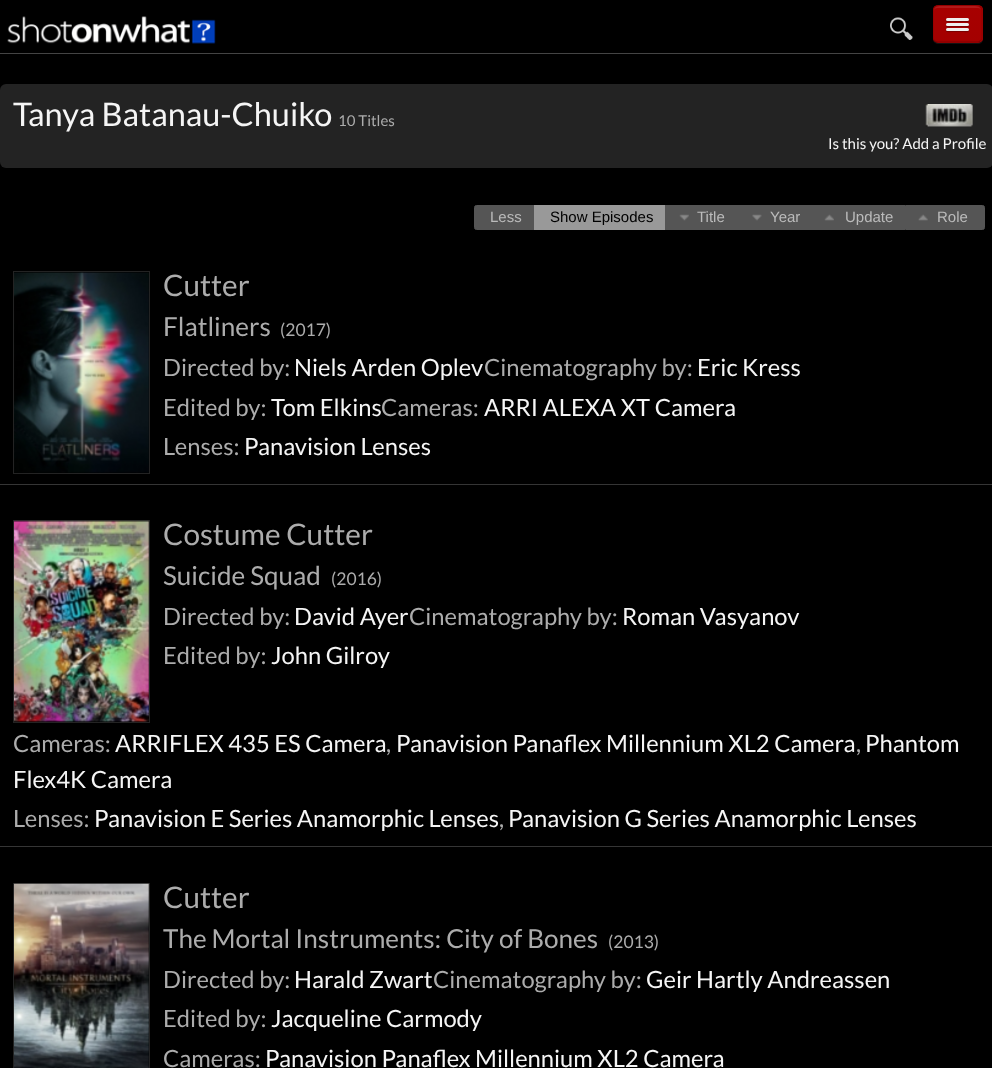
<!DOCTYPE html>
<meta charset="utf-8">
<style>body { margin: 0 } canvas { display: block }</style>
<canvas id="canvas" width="992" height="1068"></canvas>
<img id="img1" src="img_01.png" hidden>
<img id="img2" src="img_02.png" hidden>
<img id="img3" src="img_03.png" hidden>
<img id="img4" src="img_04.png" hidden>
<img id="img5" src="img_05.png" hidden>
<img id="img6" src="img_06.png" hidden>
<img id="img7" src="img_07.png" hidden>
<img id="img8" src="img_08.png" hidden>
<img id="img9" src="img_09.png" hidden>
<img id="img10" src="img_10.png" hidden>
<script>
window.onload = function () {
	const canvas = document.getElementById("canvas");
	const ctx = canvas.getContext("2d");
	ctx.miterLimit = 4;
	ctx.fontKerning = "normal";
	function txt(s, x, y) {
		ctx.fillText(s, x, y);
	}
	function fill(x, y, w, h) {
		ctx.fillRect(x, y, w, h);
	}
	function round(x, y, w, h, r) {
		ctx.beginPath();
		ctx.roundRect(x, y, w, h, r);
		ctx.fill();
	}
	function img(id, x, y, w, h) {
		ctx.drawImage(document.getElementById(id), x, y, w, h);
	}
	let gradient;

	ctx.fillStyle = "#000000";
	fill(0, 0, 992, 1068);
	ctx.fillStyle = "#444444";
	fill(0, 53, 992, 1);
	img("img1", 7, 16, 209, 28);
	img("img2", 890, 17, 23, 23);
	ctx.fillStyle = "#131313";
	ctx.beginPath();
	ctx.moveTo(933, 40);
	ctx.bezierCurveTo(933, 42, 936, 44, 938, 44);
	ctx.lineTo(978, 44);
	ctx.bezierCurveTo(981, 44, 983, 42, 983, 39);
	ctx.lineTo(983, 11);
	ctx.lineTo(982, 8);
	ctx.lineTo(982, 33);
	ctx.bezierCurveTo(982, 36, 983, 41, 979, 42);
	ctx.lineTo(944, 42);
	ctx.bezierCurveTo(941, 42, 935, 44, 933, 40);
	ctx.closePath();
	ctx.fill();
	ctx.fillStyle = "#A70000";
	round(933, 5, 50, 38, 5);
	ctx.save();
	ctx.beginPath();
	ctx.roundRect(933, 5, 50, 38, 5);
	ctx.clip();
	gradient = ctx.createLinearGradient(958, 6.2, 958, 41);
	gradient.addColorStop(0, "#A70000");
	gradient.addColorStop(1, "#A40000");
	ctx.fillStyle = gradient;
	fill(933, 6, 50, 35);
	ctx.restore();
	ctx.fillStyle = "#B01A1A";
	ctx.beginPath();
	ctx.moveTo(938, 8);
	ctx.lineTo(978, 8);
	ctx.bezierCurveTo(980, 8, 981, 9, 981, 11);
	ctx.bezierCurveTo(981, 5, 975, 6, 970, 6);
	ctx.lineTo(944, 6);
	ctx.bezierCurveTo(940, 6, 934, 5, 934, 11);
	ctx.bezierCurveTo(934, 9, 935, 8, 938, 8);
	ctx.closePath();
	ctx.fill();
	ctx.beginPath();
	ctx.moveTo(980.5, 40.5);
	ctx.bezierCurveTo(980, 41.5, 978.5, 42, 977.5, 42);
	ctx.lineTo(937.5, 42);
	ctx.bezierCurveTo(936.5, 42, 935, 41.5, 934.5, 40.5);
	ctx.strokeStyle = "rgba(0, 0, 0, 0.25)";
	ctx.lineWidth = 1.2;
	ctx.stroke();
	ctx.beginPath();
	ctx.moveTo(934.5, 40.5);
	ctx.bezierCurveTo(933.5, 40, 933, 38.5, 933, 37.5);
	ctx.lineTo(933, 10);
	ctx.bezierCurveTo(933, 9, 933.5, 7.5, 934.5, 7);
	ctx.bezierCurveTo(935, 6, 936.5, 5.5, 937.5, 5.5);
	ctx.lineTo(977.5, 5.5);
	ctx.bezierCurveTo(978.5, 5.5, 980, 6, 980.5, 7);
	ctx.bezierCurveTo(981.5, 7.5, 982, 9, 982, 10);
	ctx.lineTo(982, 37.5);
	ctx.bezierCurveTo(982, 38.5, 981.5, 40, 980.5, 40.5);
	ctx.strokeStyle = "rgba(0, 0, 0, 0.1)";
	ctx.stroke();
	ctx.fillStyle = "#7D0000";
	ctx.beginPath();
	ctx.moveTo(946.5, 19.5);
	ctx.lineTo(946, 21);
	ctx.bezierCurveTo(946.5, 23, 950, 22, 951, 22);
	ctx.lineTo(964, 22);
	ctx.bezierCurveTo(965, 22, 968.5, 23, 969, 21);
	ctx.lineTo(968.5, 19.5);
	ctx.lineTo(967.5, 20);
	ctx.lineTo(947.5, 20);
	ctx.closePath();
	ctx.fill();
	ctx.fillStyle = "#EEEEEE";
	round(946, 18, 23, 3, 1.5);
	ctx.fillStyle = "#7C0000";
	ctx.beginPath();
	ctx.moveTo(946.5, 24.5);
	ctx.lineTo(946, 26);
	ctx.bezierCurveTo(946.5, 28, 950, 27, 951, 27);
	ctx.lineTo(964, 27);
	ctx.bezierCurveTo(965, 27, 968.5, 28, 969, 26);
	ctx.lineTo(968.5, 24.5);
	ctx.lineTo(967.5, 25);
	ctx.lineTo(947.5, 25);
	ctx.closePath();
	ctx.fill();
	ctx.fillStyle = "#EEEEEE";
	round(946, 23, 23, 3, 1.5);
	ctx.fillStyle = "#7C0000";
	ctx.beginPath();
	ctx.moveTo(946.5, 29.5);
	ctx.lineTo(946, 31);
	ctx.bezierCurveTo(946.5, 33, 950, 32, 951, 32);
	ctx.lineTo(964, 32);
	ctx.bezierCurveTo(965, 32, 968.5, 33, 969, 31);
	ctx.lineTo(968.5, 29.5);
	ctx.lineTo(967.5, 30);
	ctx.lineTo(947.5, 30);
	ctx.closePath();
	ctx.fill();
	ctx.fillStyle = "#EEEEEE";
	round(946, 28, 23, 3, 1.5);
	ctx.fillStyle = "#232323";
	round(0, 84, 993, 84, 6);
	img("img3", 925, 104, 48, 23);
	ctx.fillStyle = "#555555";
	ctx.beginPath();
	ctx.roundRect(474.5, 205.5, 63, 24, [2, 0, 0, 2]);
	ctx.fill();
	ctx.strokeStyle = "#555555";
	ctx.lineWidth = 1;
	ctx.stroke();
	ctx.fillStyle = "#999999";
	fill(534, 205, 131, 25);
	ctx.fillStyle = "#555555";
	fill(665, 205, 240, 25);
	img("img4", 679, 214, 10, 7);
	img("img5", 752, 214, 10, 7);
	img("img6", 824, 214, 10, 7);
	ctx.beginPath();
	ctx.roundRect(905.5, 205.5, 79, 24, [0, 2, 2, 0]);
	ctx.fill();
	ctx.stroke();
	img("img7", 918, 214, 10, 7);
	ctx.fillStyle = "#353535";
	fill(0, 484, 992, 1);
	ctx.strokeStyle = "#232323";
	ctx.strokeRect(13.5, 271.5, 136, 202);
	img("img8", 14, 272, 135, 201);
	fill(0, 846, 992, 1);
	ctx.strokeRect(13.5, 520.5, 136, 202);
	img("img9", 14, 520, 135, 202);
	ctx.strokeRect(13.5, 883.5, 136, 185);
	img("img10", 14, 883, 135, 185);
	ctx.font = "32.5px Lato";
	ctx.fillStyle = "#F5F5F5";
	txt("Tanya Batanau-Chuiko", 13, 126);
	ctx.font = "15px Lato";
	ctx.fillStyle = "#ACACAC";
	txt("10 Titles", 338, 126);
	ctx.fillStyle = "#F5F5F5";
	txt("Is this you? Add a Profile", 828, 149);
	ctx.font = "15px Liberation Sans";
	ctx.fillStyle = "#BBBBBB";
	txt("Less", 490, 222);
	ctx.fillStyle = "#000000";
	txt("Show Episodes", 550, 222);
	ctx.fillStyle = "#BBBBBB";
	txt("Title", 697, 222);
	txt("Year", 770, 222);
	txt("Update", 845, 222);
	txt("Role", 937, 222);
	ctx.font = "29.75px Lato";
	ctx.fillStyle = "#ACACAC";
	txt("Cutter", 163, 296);
	ctx.font = "26.1px Lato";
	txt("Flatliners", 163, 336);
	ctx.font = "17.5px Lato";
	txt("(2017)", 280, 336);
	ctx.font = "23.75px Lato";
	txt("Directed by:", 163, 376);
	ctx.fillStyle = "#F5F5F5";
	txt("Niels Arden Oplev", 294, 376);
	ctx.fillStyle = "#ACACAC";
	txt("Cinematography by:", 484, 376);
	ctx.fillStyle = "#F5F5F5";
	txt("Eric Kress", 697, 376);
	ctx.fillStyle = "#ACACAC";
	txt("Edited by:", 163, 416);
	ctx.fillStyle = "#F5F5F5";
	txt("Tom Elkins", 271, 416);
	ctx.fillStyle = "#ACACAC";
	txt("Cameras:", 381, 416);
	ctx.fillStyle = "#F5F5F5";
	txt("ARRI ALEXA XT Camera", 484, 416);
	ctx.fillStyle = "#ACACAC";
	txt("Lenses:", 163, 455);
	ctx.fillStyle = "#F5F5F5";
	txt("Panavision Lenses", 244, 455);
	ctx.font = "29.75px Lato";
	ctx.fillStyle = "#ACACAC";
	txt("Costume Cutter", 163, 545);
	ctx.font = "26.1px Lato";
	txt("Suicide Squad", 163, 585);
	ctx.font = "17.5px Lato";
	txt("(2016)", 331, 585);
	ctx.font = "23.75px Lato";
	txt("Directed by:", 163, 625);
	ctx.fillStyle = "#F5F5F5";
	txt("David Ayer", 294, 625);
	ctx.fillStyle = "#ACACAC";
	txt("Cinematography by:", 409, 625);
	ctx.fillStyle = "#F5F5F5";
	txt("Roman Vasyanov", 622, 625);
	ctx.fillStyle = "#ACACAC";
	txt("Edited by:", 163, 664);
	ctx.fillStyle = "#F5F5F5";
	txt("John Gilroy", 271, 664);
	ctx.fillStyle = "#ACACAC";
	txt("Cameras:", 13, 752);
	ctx.fillStyle = "#F5F5F5";
	txt("ARRIFLEX 435 ES Camera", 115, 752);
	ctx.fillStyle = "#ACACAC";
	txt(",", 386, 752);
	ctx.fillStyle = "#F5F5F5";
	txt("Panavision Panaflex Millennium XL2 Camera", 396, 752);
	ctx.fillStyle = "#ACACAC";
	txt(",", 856, 752);
	ctx.fillStyle = "#F5F5F5";
	txt("Phantom", 865, 752);
	txt("Flex4K Camera", 13, 788);
	ctx.fillStyle = "#ACACAC";
	txt("Lenses:", 13, 827);
	ctx.fillStyle = "#F5F5F5";
	txt("Panavision E Series Anamorphic Lenses", 94, 827);
	ctx.fillStyle = "#ACACAC";
	txt(",", 499, 827);
	ctx.fillStyle = "#F5F5F5";
	txt("Panavision G Series Anamorphic Lenses", 508, 827);
	ctx.font = "29.75px Lato";
	ctx.fillStyle = "#ACACAC";
	txt("Cutter", 163, 908);
	ctx.font = "26.1px Lato";
	txt("The Mortal Instruments: City of Bones", 163, 948);
	ctx.font = "17.5px Lato";
	txt("(2013)", 608, 948);
	ctx.font = "23.75px Lato";
	txt("Directed by:", 163, 988);
	ctx.fillStyle = "#F5F5F5";
	txt("Harald Zwart", 294, 988);
	ctx.fillStyle = "#ACACAC";
	txt("Cinematography by:", 433, 988);
	ctx.fillStyle = "#F5F5F5";
	txt("Geir Hartly Andreassen", 646, 988);
	ctx.fillStyle = "#ACACAC";
	txt("Edited by:", 163, 1027);
	ctx.fillStyle = "#F5F5F5";
	txt("Jacqueline Carmody", 271, 1027);
	ctx.fillStyle = "#ACACAC";
	txt("Cameras:", 163, 1067);
	ctx.fillStyle = "#F5F5F5";
	txt("Panavision Panaflex Millennium XL2 Camera", 265, 1067);
};
</script>
